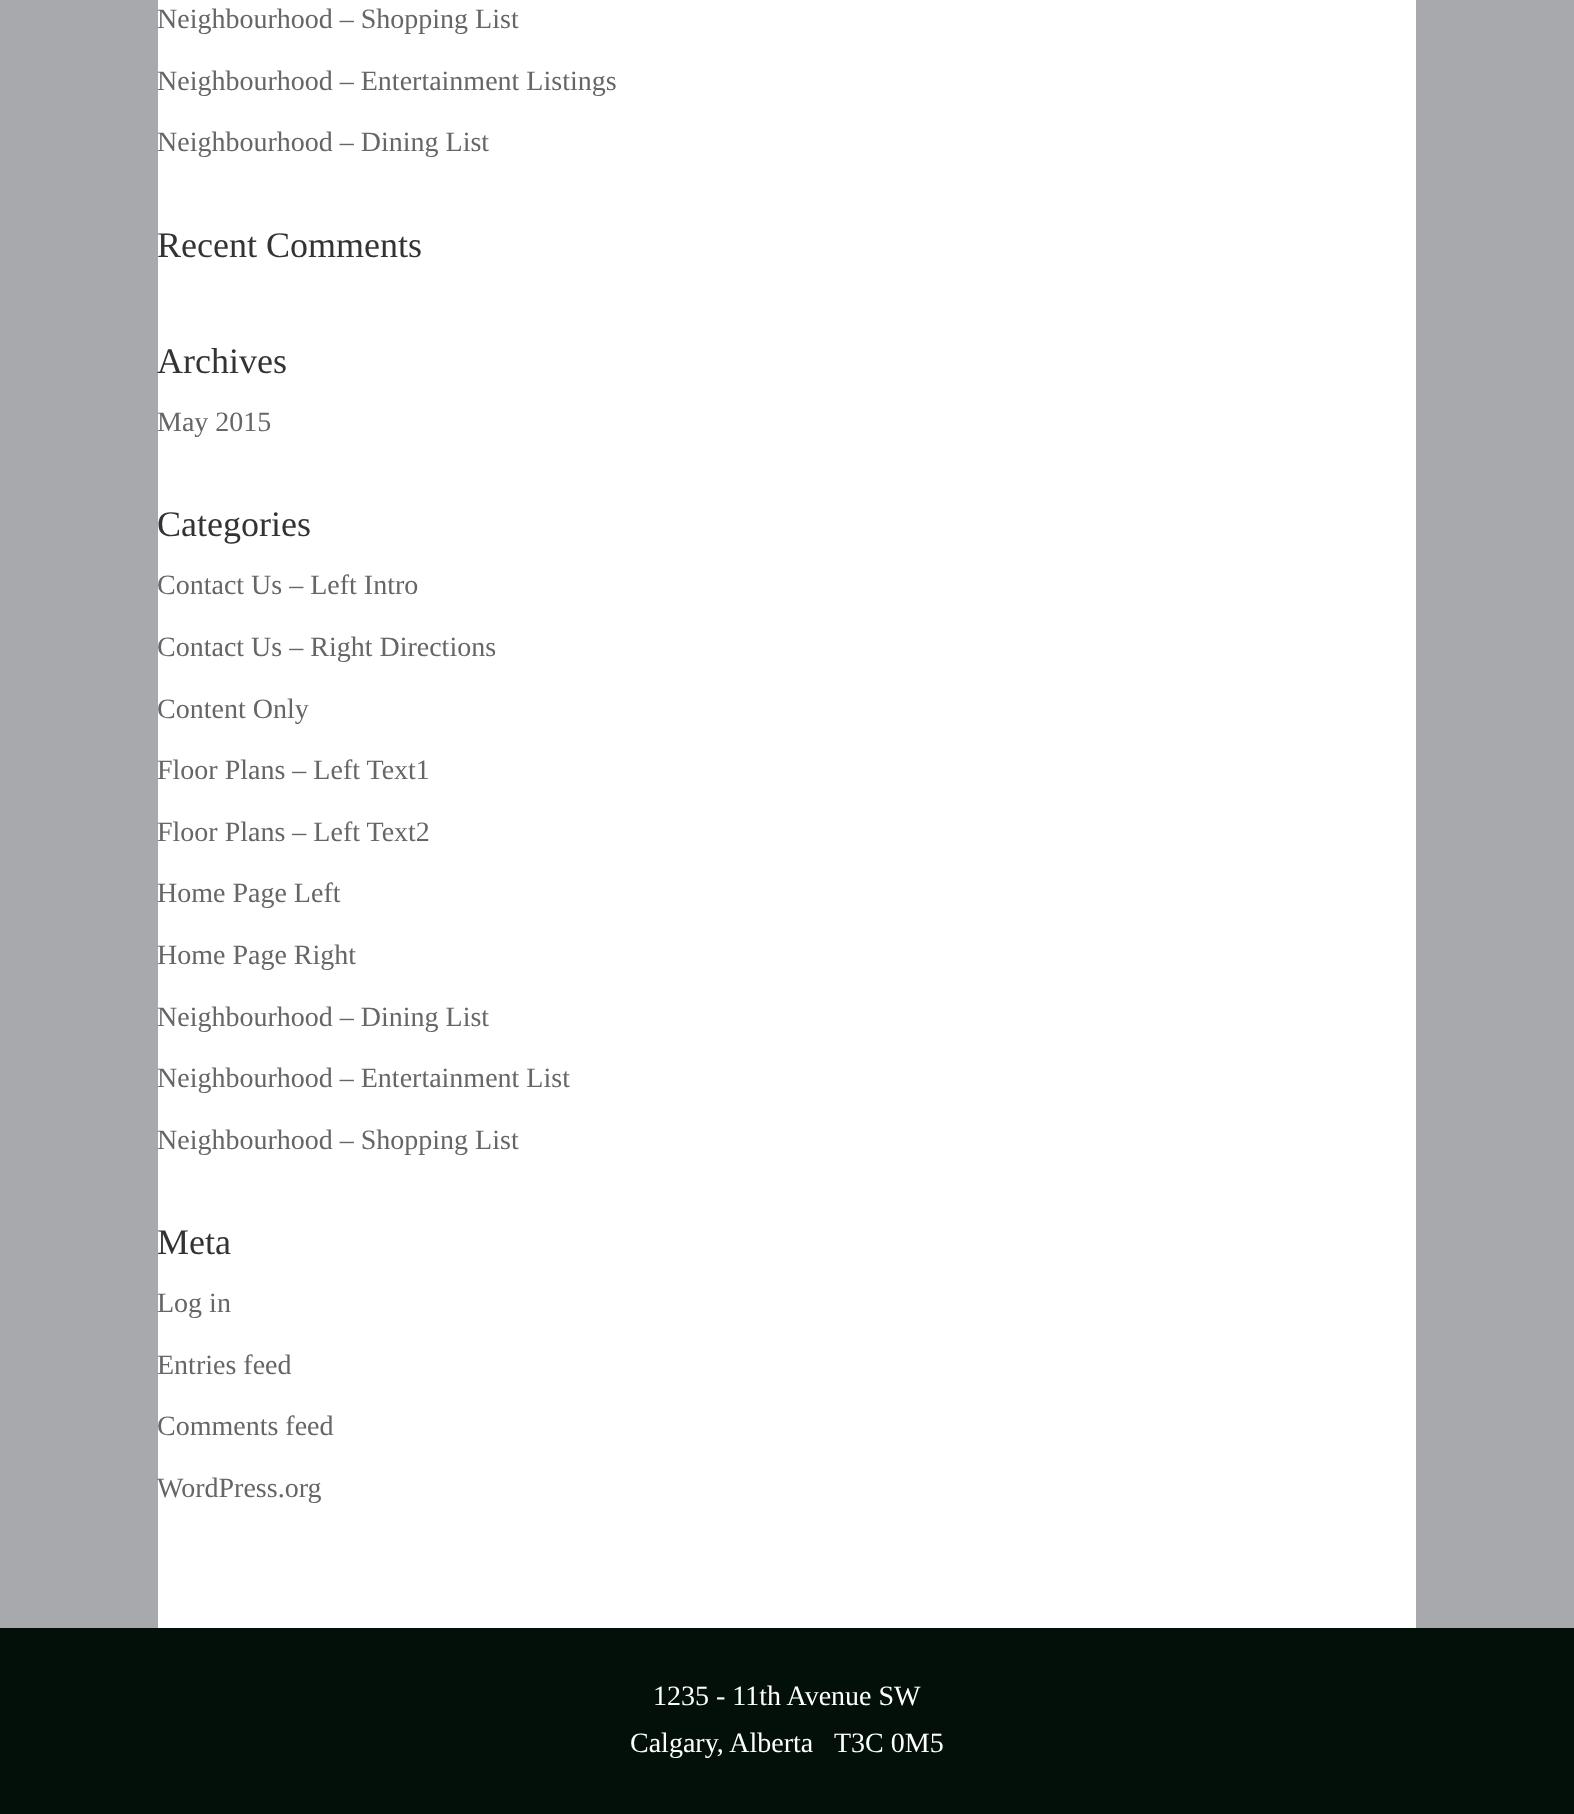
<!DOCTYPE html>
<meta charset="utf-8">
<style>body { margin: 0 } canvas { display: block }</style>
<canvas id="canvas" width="1574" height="1814"></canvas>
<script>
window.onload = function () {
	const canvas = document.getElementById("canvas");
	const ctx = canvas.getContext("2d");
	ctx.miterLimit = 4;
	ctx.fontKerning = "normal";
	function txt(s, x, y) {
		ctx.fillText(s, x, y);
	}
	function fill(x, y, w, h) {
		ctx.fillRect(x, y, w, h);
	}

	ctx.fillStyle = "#A7A9AC";
	fill(0, 0, 1574, 1814);
	ctx.fillStyle = "#FFFFFF";
	fill(158, 0, 1258, 1628);
	ctx.fillStyle = "#031009";
	fill(0, 1628, 1574, 186);
	ctx.font = "28px Liberation Serif";
	ctx.fillStyle = "#666666";
	txt("Neighbourhood – Shopping List", 157, 28);
	txt("Neighbourhood – Entertainment Listings", 157, 90);
	txt("Neighbourhood – Dining List", 157, 151);
	ctx.font = "36px Liberation Serif";
	ctx.fillStyle = "#333333";
	txt("Recent Comments", 157, 257);
	txt("Archives", 157, 373);
	ctx.font = "28px Liberation Serif";
	ctx.fillStyle = "#666666";
	txt("May 2015", 157, 431);
	ctx.font = "36px Liberation Serif";
	ctx.fillStyle = "#333333";
	txt("Categories", 157, 536);
	ctx.font = "28px Liberation Serif";
	ctx.fillStyle = "#666666";
	txt("Contact Us – Left Intro", 157, 594);
	txt("Contact Us – Right Directions", 157, 656);
	txt("Content Only", 157, 718);
	txt("Floor Plans – Left Text1", 157, 779);
	txt("Floor Plans – Left Text2", 157, 841);
	txt("Home Page Left", 157, 902);
	txt("Home Page Right", 157, 964);
	txt("Neighbourhood – Dining List", 157, 1026);
	txt("Neighbourhood – Entertainment List", 157, 1087);
	txt("Neighbourhood – Shopping List", 157, 1149);
	ctx.font = "36px Liberation Serif";
	ctx.fillStyle = "#333333";
	txt("Meta", 157, 1254);
	ctx.font = "28px Liberation Serif";
	ctx.fillStyle = "#666666";
	txt("Log in", 157, 1312);
	txt("Entries feed", 157, 1374);
	txt("Comments feed", 157, 1435);
	txt("WordPress.org", 157, 1497);
	ctx.fillStyle = "#FFFFFF";
	txt("1235 - 11th Avenue SW", 653, 1705);
	txt("Calgary, Alberta", 630, 1752);
	txt("T3C 0M5", 834, 1752);
};
</script>
